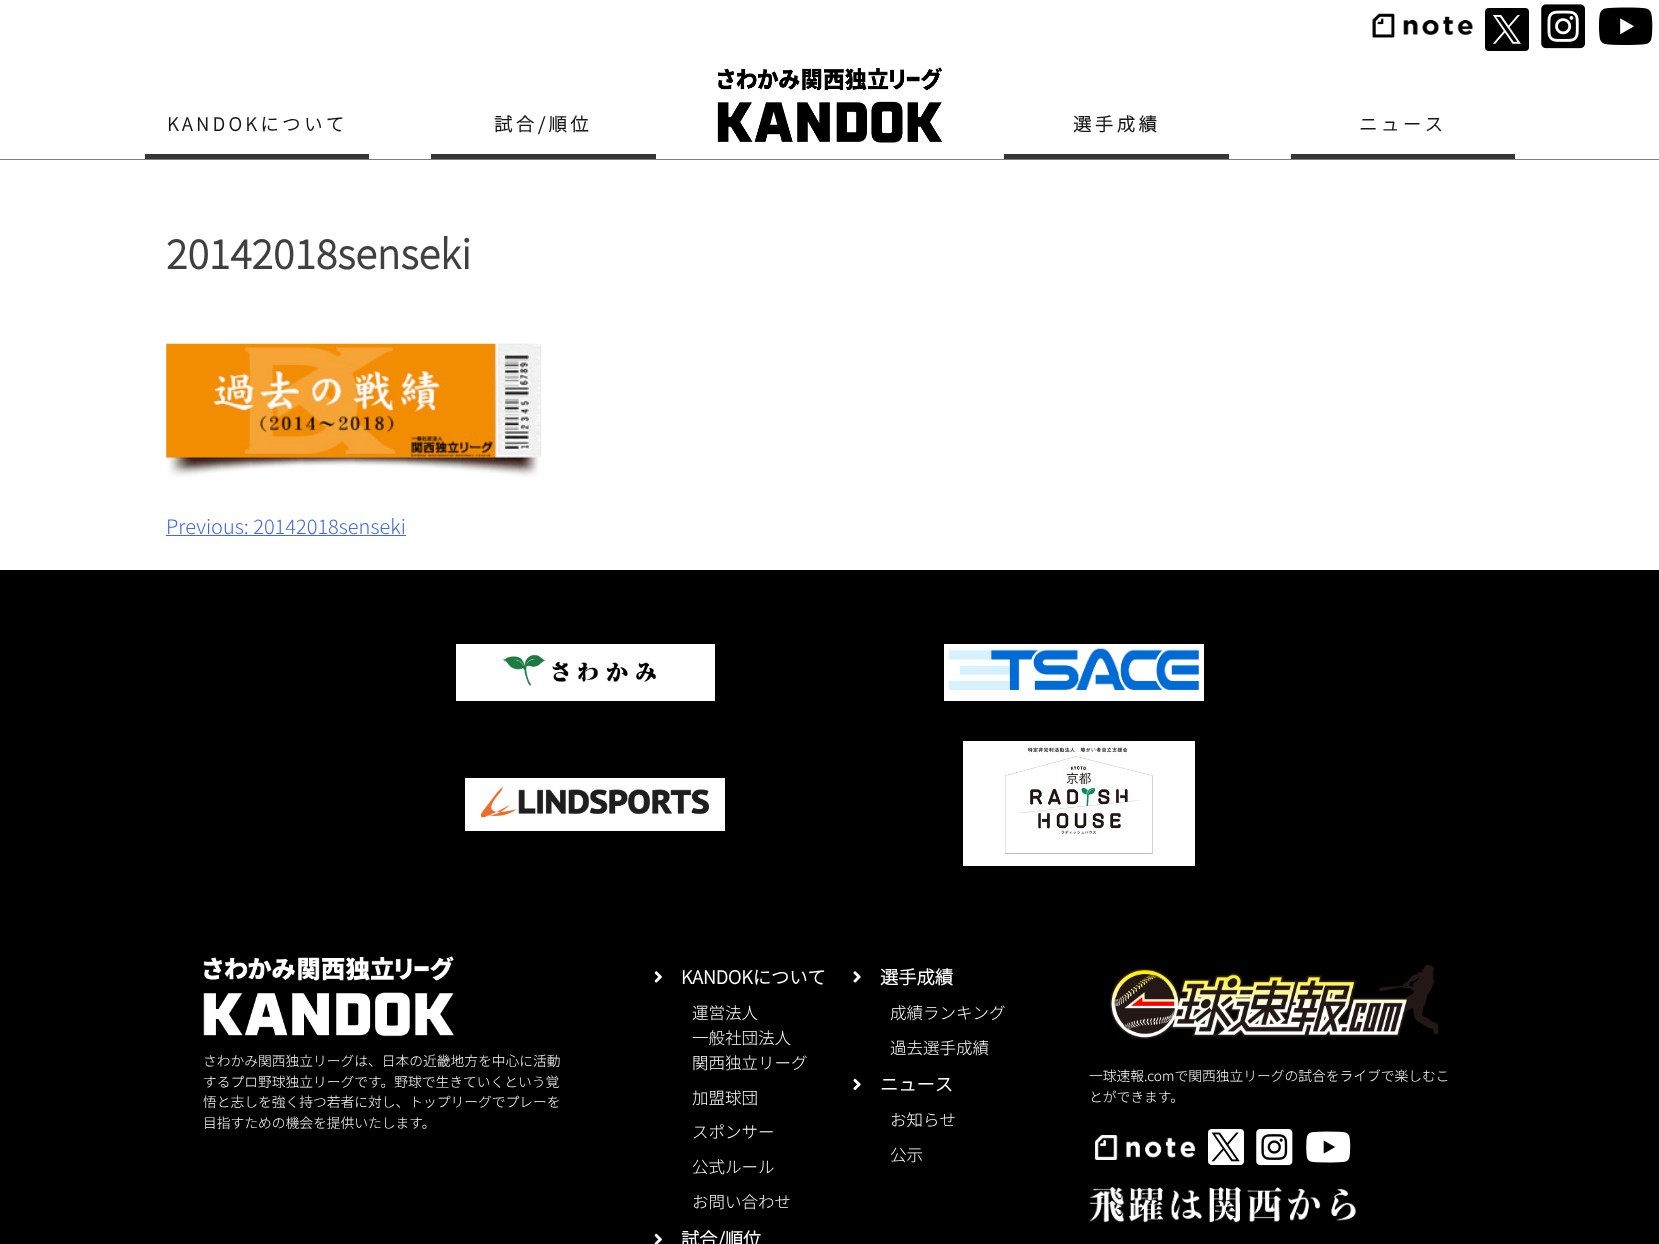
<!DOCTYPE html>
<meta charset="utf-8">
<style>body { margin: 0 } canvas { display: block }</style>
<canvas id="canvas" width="1659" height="1244"></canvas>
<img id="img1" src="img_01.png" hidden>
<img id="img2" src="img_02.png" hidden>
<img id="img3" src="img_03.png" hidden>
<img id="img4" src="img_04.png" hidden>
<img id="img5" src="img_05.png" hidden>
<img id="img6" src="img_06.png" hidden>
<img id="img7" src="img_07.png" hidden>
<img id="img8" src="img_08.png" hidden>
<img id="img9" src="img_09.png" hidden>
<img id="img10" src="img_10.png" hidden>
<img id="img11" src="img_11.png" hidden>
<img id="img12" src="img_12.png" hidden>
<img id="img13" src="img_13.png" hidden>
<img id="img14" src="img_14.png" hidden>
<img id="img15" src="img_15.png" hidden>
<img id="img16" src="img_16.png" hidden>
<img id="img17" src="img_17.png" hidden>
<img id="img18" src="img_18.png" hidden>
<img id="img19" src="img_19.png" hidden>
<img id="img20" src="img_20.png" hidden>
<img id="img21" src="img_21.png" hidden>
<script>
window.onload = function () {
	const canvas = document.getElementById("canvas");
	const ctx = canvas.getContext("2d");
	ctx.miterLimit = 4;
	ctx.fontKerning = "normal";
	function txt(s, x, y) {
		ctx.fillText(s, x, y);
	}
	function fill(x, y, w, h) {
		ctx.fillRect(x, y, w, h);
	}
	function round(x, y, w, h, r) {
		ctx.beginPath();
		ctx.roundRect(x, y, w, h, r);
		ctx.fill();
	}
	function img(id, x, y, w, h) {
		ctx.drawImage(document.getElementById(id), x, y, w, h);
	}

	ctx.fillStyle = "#FFFFFF";
	fill(0, 0, 1659, 1244);
	img("img1", 1372, 13, 101, 25);
	ctx.fillStyle = "#000000";
	round(1485, 8, 44, 43, 4);
	img("img2", 1493, 15, 28, 29);
	img("img3", 1541, 4, 44, 45);
	img("img4", 1598, 7, 55, 38);
	ctx.save();
	ctx.beginPath();
	ctx.moveTo(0, 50);
	ctx.lineTo(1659, 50);
	ctx.lineTo(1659, 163);
	ctx.lineTo(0, 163);
	ctx.closePath();
	ctx.moveTo(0, 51);
	ctx.lineTo(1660, 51);
	ctx.lineTo(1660, 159);
	ctx.lineTo(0, 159);
	ctx.closePath();
	ctx.clip("evenodd");
	ctx.fillStyle = "rgba(0, 0, 0, 0.5)";
	ctx.filter = "blur(0.5px)";
	ctx.beginPath();
	ctx.rect(0, 53, 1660, 107);
	ctx.fill();
	ctx.filter = "none";
	ctx.restore();
	ctx.fillStyle = "#383634";
	fill(145, 154, 224, 5);
	fill(431, 154, 225, 5);
	img("img5", 717, 67, 225, 76);
	fill(1004, 154, 225, 5);
	fill(1291, 154, 224, 5);
	img("img6", 166, 343, 376, 134);
	ctx.fillStyle = "#4169E1";
	fill(166, 535, 240, 1);
	ctx.fillStyle = "#000000";
	fill(0, 570, 1659, 674);
	ctx.fillStyle = "#FFFFFF";
	fill(456, 644, 259, 57);
	img("img7", 502, 654, 155, 32);
	fill(944, 644, 260, 57);
	img("img8", 948, 648, 251, 42);
	fill(465, 778, 260, 53);
	img("img9", 480, 786, 229, 32);
	fill(963, 741, 232, 125);
	img("img10", 1005, 747, 148, 107);
	img("img11", 203, 956, 251, 81);
	img("img12", 654, 971, 8, 12);
	img("img13", 654, 1233, 8, 11);
	img("img14", 853, 971, 8, 12);
	img("img15", 853, 1078, 8, 12);
	img("img16", 1110, 965, 329, 74);
	img("img17", 1095, 1135, 100, 25);
	round(1208, 1129, 36, 36, 4);
	img("img18", 1211, 1132, 29, 30);
	img("img19", 1256, 1129, 37, 37);
	img("img20", 1306, 1131, 45, 32);
	img("img21", 1089, 1187, 267, 36);
	ctx.letterSpacing = "3.6px";
	ctx.font = "bold 18.25px Noto Sans JP";
	ctx.fillStyle = "#171717";
	txt("KANDOKについて", 167, 131);
	txt("試合/順位", 494, 131);
	txt("選手成績", 1073, 131);
	txt("ニュース", 1359, 131);
	ctx.letterSpacing = "0px";
	ctx.font = "bold 40px Noto Sans JP";
	ctx.fillStyle = "#404040";
	txt("20142018senseki", 166, 269);
	ctx.font = "100 20px Noto Sans JP";
	ctx.fillStyle = "#4169E1";
	txt("Previous: 20142018senseki", 166, 534);
	ctx.font = "100 13.75px Noto Sans JP";
	ctx.fillStyle = "#FFFFFF";
	txt("さわかみ関西独立リーグは、日本の近畿地方を中心に活動", 203, 1066);
	txt("するプロ野球独立リーグです。野球で生きていくという覚", 203, 1087);
	txt("悟と志しを強く持つ若者に対し、トップリーグでプレーを", 203, 1107);
	txt("目指すための機会を提供いたします。", 203, 1128);
	ctx.font = "bold 18.25px Noto Sans JP";
	txt("KANDOKについて", 681, 984);
	ctx.font = "100 16.5px Noto Sans JP";
	txt("運営法人", 692, 1019);
	txt("一般社団法人", 692, 1044);
	txt("関西独立リーグ", 692, 1069);
	txt("加盟球団", 692, 1104);
	txt("スポンサー", 692, 1138);
	txt("公式ルール", 692, 1173);
	txt("お問い合わせ", 692, 1208);
	ctx.font = "bold 18.25px Noto Sans JP";
	txt("試合/順位", 681, 1246);
	txt("選手成績", 880, 984);
	ctx.font = "100 16.5px Noto Sans JP";
	txt("成績ランキング", 890, 1019);
	txt("過去選手成績", 890, 1054);
	ctx.font = "bold 18.25px Noto Sans JP";
	txt("ニュース", 880, 1091);
	ctx.font = "100 16.5px Noto Sans JP";
	txt("お知らせ", 890, 1126);
	txt("公示", 890, 1161);
	ctx.font = "100 13.75px Noto Sans JP";
	txt("一球速報.comで関西独立リーグの試合をライブで楽しむこ", 1089, 1081);
	txt("とができます。", 1089, 1102);
};
</script>
